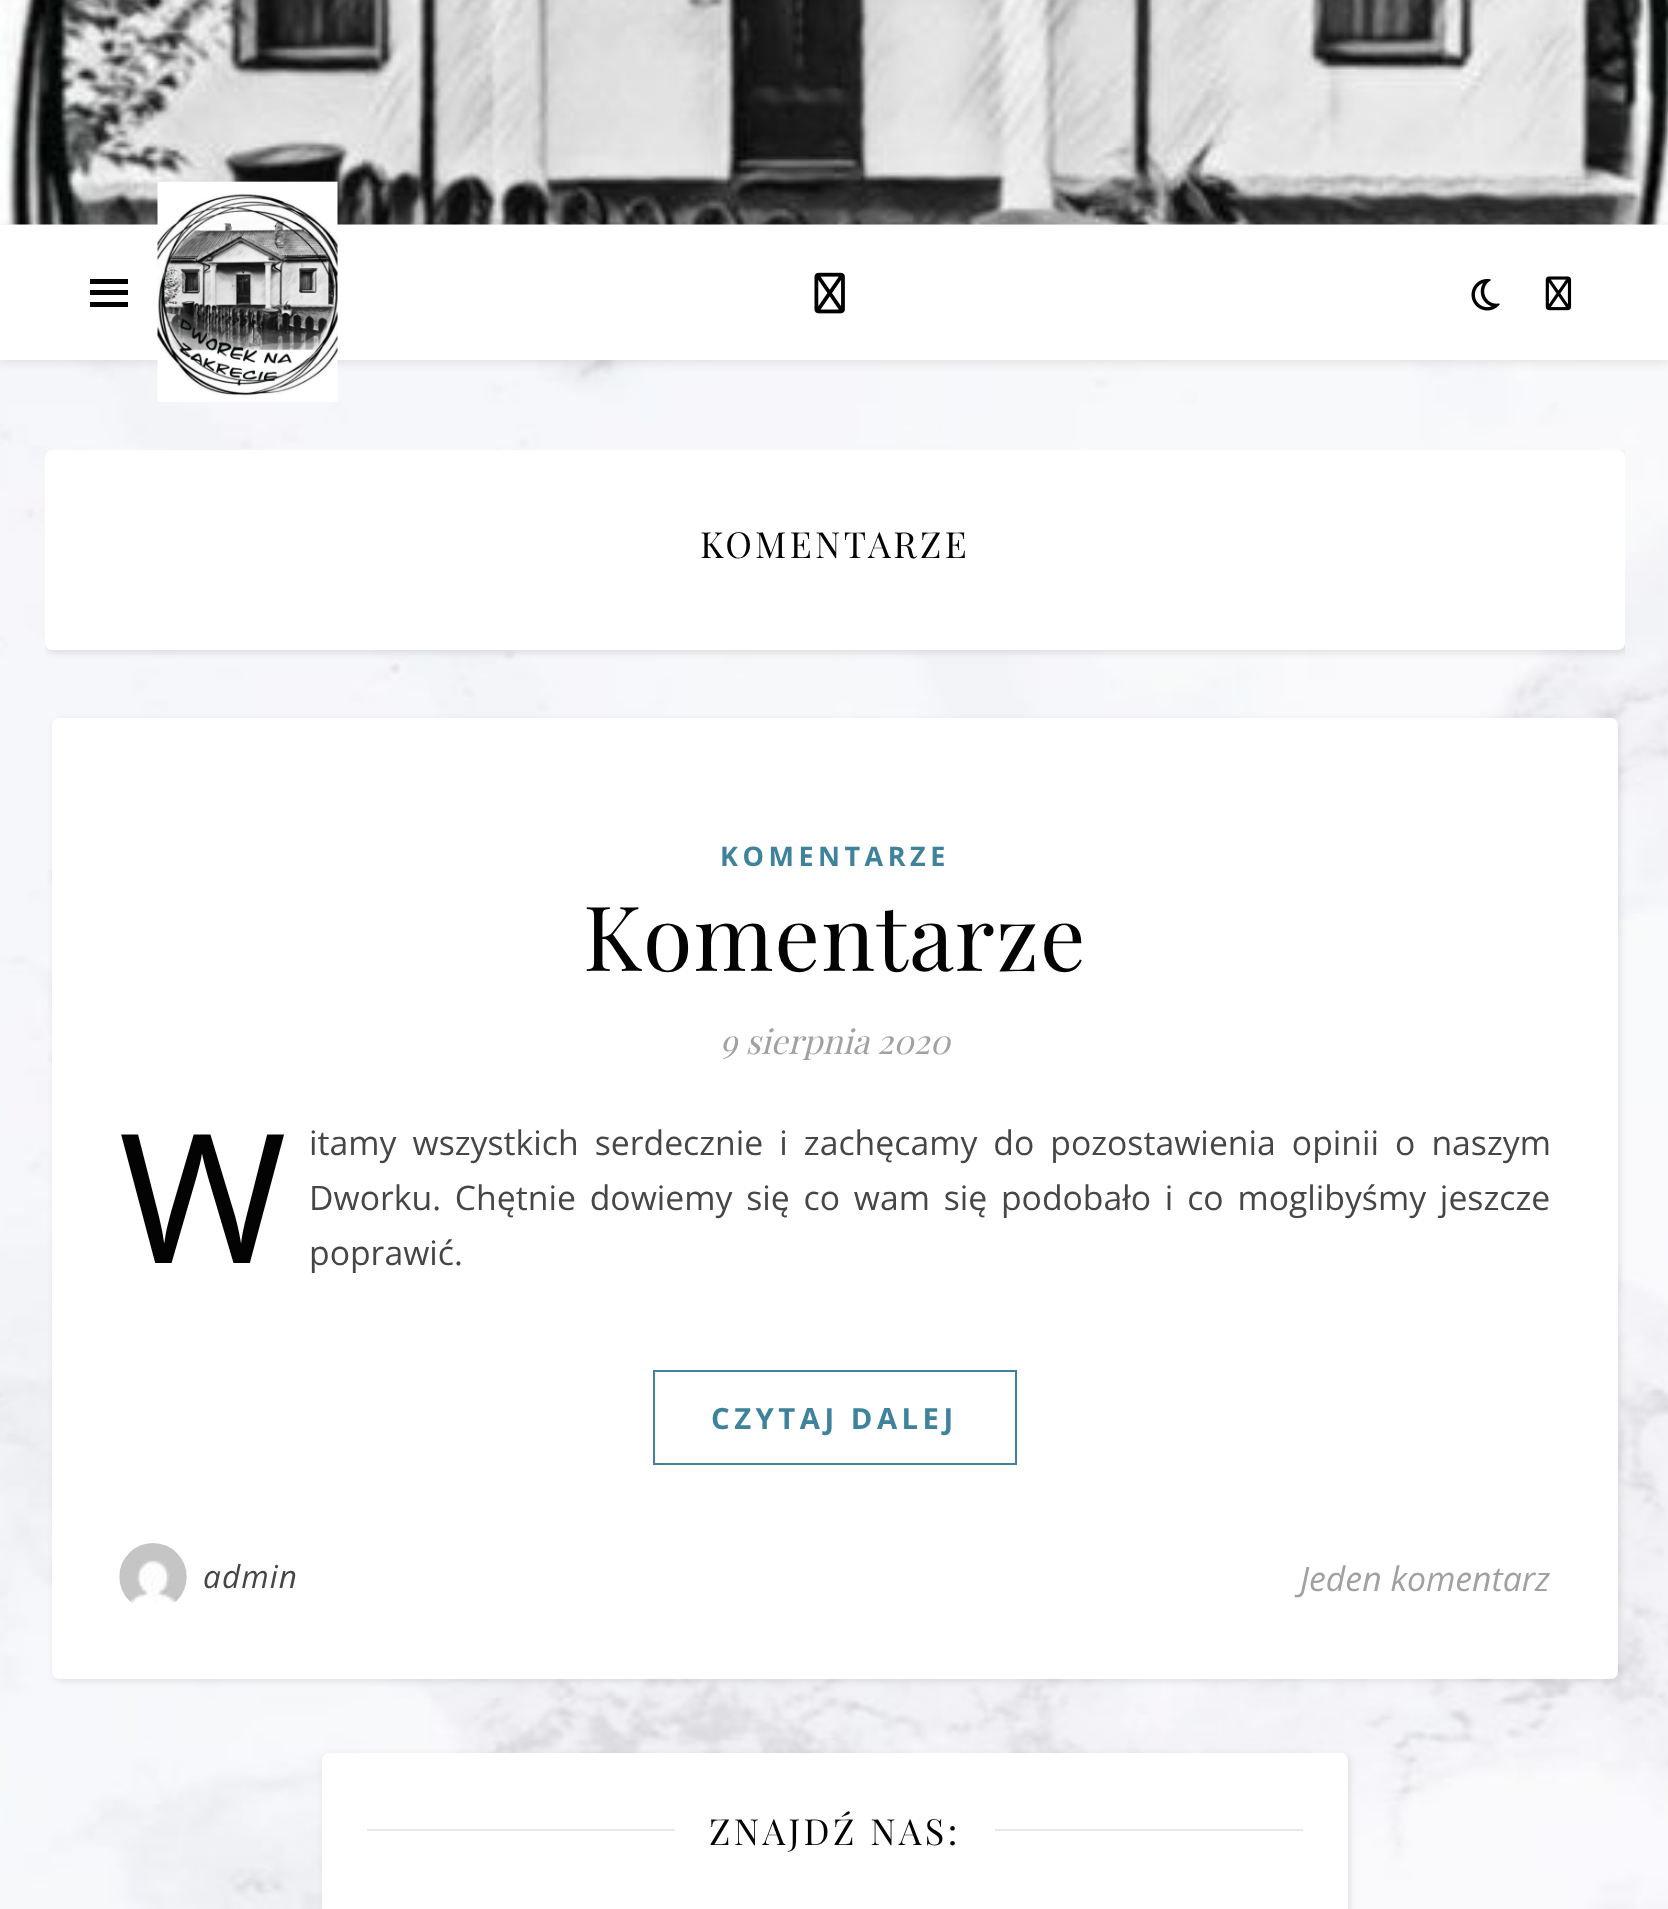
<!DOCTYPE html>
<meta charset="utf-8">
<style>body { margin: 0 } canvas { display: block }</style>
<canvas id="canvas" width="1668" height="1909"></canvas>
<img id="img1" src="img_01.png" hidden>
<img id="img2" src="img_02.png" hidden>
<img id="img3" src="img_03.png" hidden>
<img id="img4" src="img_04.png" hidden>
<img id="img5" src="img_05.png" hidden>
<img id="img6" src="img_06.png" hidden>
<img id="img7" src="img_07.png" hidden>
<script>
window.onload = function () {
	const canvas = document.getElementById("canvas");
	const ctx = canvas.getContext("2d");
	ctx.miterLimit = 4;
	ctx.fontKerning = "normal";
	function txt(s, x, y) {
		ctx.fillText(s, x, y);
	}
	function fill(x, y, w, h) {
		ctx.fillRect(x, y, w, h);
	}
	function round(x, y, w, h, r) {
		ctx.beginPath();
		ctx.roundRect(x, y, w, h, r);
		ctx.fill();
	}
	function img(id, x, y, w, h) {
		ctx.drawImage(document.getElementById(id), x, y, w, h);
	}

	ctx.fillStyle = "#FFFFFF";
	fill(0, 0, 1668, 1909);
	img("img1", 0, 360, 1668, 1549);
	img("img2", 0, 0, 1668, 225);
	ctx.fillStyle = "rgba(0, 0, 0, 0.1)";
	ctx.filter = "blur(5.5px)";
	ctx.beginPath();
	ctx.rect(0, 227, 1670, 135);
	ctx.fill();
	ctx.filter = "none";
	ctx.fillStyle = "#FFFFFF";
	fill(0, 225, 1668, 135);
	ctx.fillStyle = "#000000";
	fill(90, 279, 38, 5);
	fill(90, 290, 38, 5);
	fill(90, 302, 38, 5);
	img("img3", 157, 181, 181, 221);
	img("img4", 814, 272, 31, 42);
	img("img5", 1471, 279, 29, 32);
	img("img6", 1545, 276, 27, 35);
	ctx.save();
	ctx.beginPath();
	ctx.rect(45, 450, 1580, 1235);
	ctx.clip();
	ctx.fillStyle = "rgba(0, 0, 0, 0.1)";
	ctx.filter = "blur(3.5px)";
	ctx.beginPath();
	ctx.roundRect(47, 452, 1580, 201, 7);
	ctx.fill();
	ctx.filter = "none";
	ctx.restore();
	ctx.fillStyle = "#FFFFFF";
	round(45, 450, 1580, 200, 7);
	ctx.fillStyle = "rgba(0, 0, 0, 0.1)";
	ctx.filter = "blur(3.5px)";
	ctx.beginPath();
	ctx.roundRect(54, 720, 1566, 961, 7);
	ctx.fill();
	ctx.filter = "none";
	ctx.fillStyle = "#FFFFFF";
	round(52, 718, 1566, 961, 7);
	ctx.strokeStyle = "#3E829B";
	ctx.lineWidth = 2;
	ctx.strokeRect(654, 1371, 362, 93);
	img("img7", 119, 1543, 68, 60);
	ctx.fillStyle = "rgba(0, 0, 0, 0.1)";
	ctx.filter = "blur(3.5px)";
	ctx.beginPath();
	ctx.roundRect(324, 1755, 1026, 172, 7);
	ctx.fill();
	ctx.filter = "none";
	ctx.fillStyle = "#FFFFFF";
	round(322, 1753, 1026, 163, 7);
	ctx.fillStyle = "#E8E8E8";
	fill(367, 1829, 308, 2);
	fill(995, 1829, 308, 2);
	ctx.letterSpacing = "3.4px";
	ctx.font = "36px Playfair Display";
	ctx.fillStyle = "#030303";
	txt("KOMENTARZE", 700, 558);
	ctx.letterSpacing = "4.5px";
	ctx.font = "bold 27px Open Sans";
	ctx.fillStyle = "#3E829B";
	txt("KOMENTARZE", 720, 866);
	ctx.letterSpacing = "1.1px";
	ctx.font = "90px Playfair Display";
	ctx.fillStyle = "#030303";
	txt("Komentarze", 583, 971);
	ctx.letterSpacing = "0px";
	ctx.font = "italic 33.75px Playfair Display";
	ctx.fillStyle = "#A1A1A1";
	txt("9 sierpnia 2020", 720, 1054);
	ctx.font = "180px Noto Sans";
	ctx.fillStyle = "#030303";
	txt("W", 119, 1263);
	ctx.wordSpacing = "7.25px";
	ctx.font = "33.75px Open Sans";
	ctx.fillStyle = "#464646";
	txt("itamy wszystkich serdecznie i zachęcamy do pozostawienia opinii o naszym", 309, 1155);
	ctx.wordSpacing = "5px";
	txt("Dworku. Chętnie dowiemy się co wam się podobało i co moglibyśmy jeszcze", 309, 1210);
	ctx.wordSpacing = "0px";
	txt("poprawić.", 309, 1265);
	ctx.letterSpacing = "4.5px";
	ctx.font = "bold 29.25px Open Sans";
	ctx.fillStyle = "#3E829B";
	txt("CZYTAJ DALEJ", 711, 1429);
	ctx.letterSpacing = "1.1px";
	ctx.font = "italic 31.5px Open Sans";
	ctx.fillStyle = "#464646";
	txt("admin", 203, 1588);
	ctx.letterSpacing = "0px";
	ctx.font = "italic 33.75px Open Sans";
	ctx.fillStyle = "#A1A1A1";
	txt("Jeden komentarz", 1300, 1591);
	ctx.letterSpacing = "3.4px";
	ctx.font = "36px Playfair Display";
	ctx.fillStyle = "#030303";
	txt("ZNAJDŹ NAS:", 709, 1845);
};
</script>
